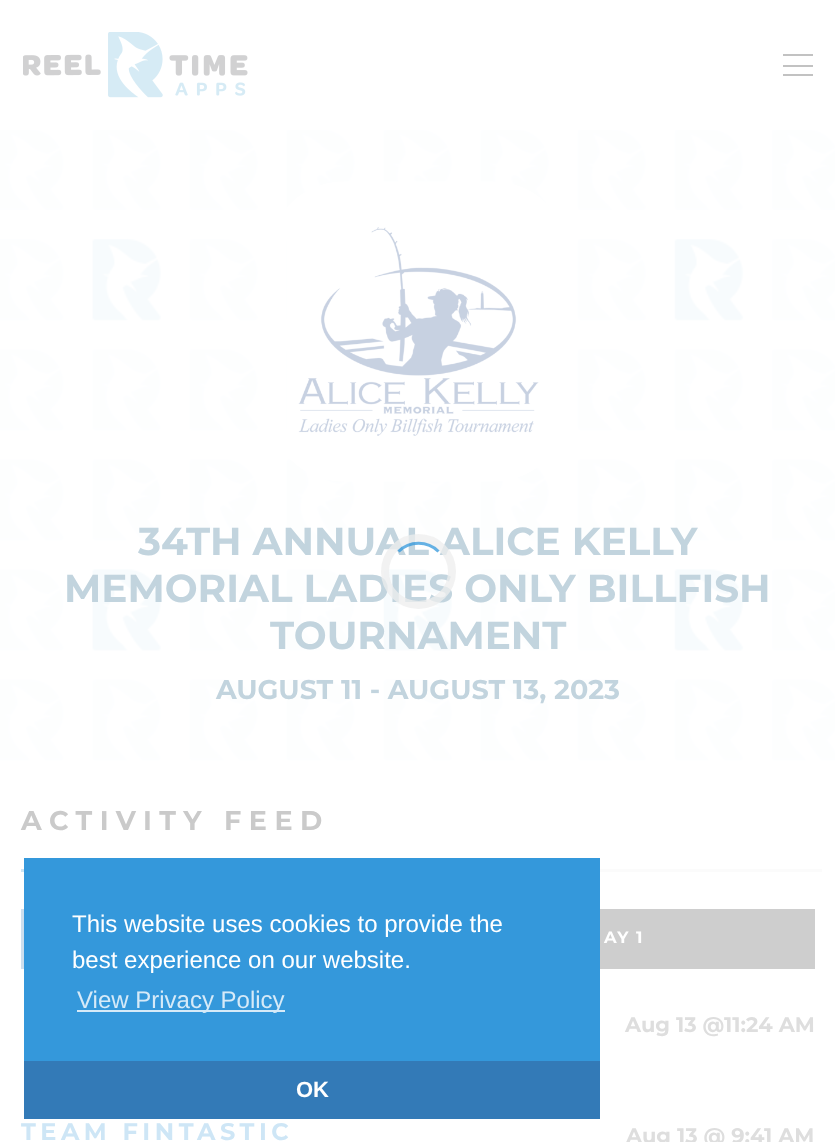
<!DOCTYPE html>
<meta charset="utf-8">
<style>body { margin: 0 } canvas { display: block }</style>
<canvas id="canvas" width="835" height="1142"></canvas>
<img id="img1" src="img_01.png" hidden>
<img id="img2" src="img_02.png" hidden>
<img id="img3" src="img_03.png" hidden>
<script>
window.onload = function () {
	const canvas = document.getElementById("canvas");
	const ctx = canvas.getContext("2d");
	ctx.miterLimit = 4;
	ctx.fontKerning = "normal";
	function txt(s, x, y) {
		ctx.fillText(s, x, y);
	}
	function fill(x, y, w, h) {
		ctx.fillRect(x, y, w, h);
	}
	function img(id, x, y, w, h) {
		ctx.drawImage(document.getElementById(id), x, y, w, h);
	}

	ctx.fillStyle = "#FFFFFF";
	fill(0, 0, 835, 1142);
	img("img1", 23, 32, 225, 66);
	ctx.fillStyle = "#C2C2C2";
	fill(783, 54, 30, 2);
	fill(783, 65, 30, 2);
	fill(783, 74, 30, 2);
	img("img2", 0, 130, 835, 631);
	img("img3", 287, 181, 262, 301);
	ctx.fillStyle = "#CEE6F6";
	fill(21, 869, 3, 3);
	ctx.fillStyle = "#FBFBFB";
	fill(600, 869, 222, 3);
	ctx.fillStyle = "#CEDFEE";
	fill(21, 909, 3, 60);
	ctx.fillStyle = "#CECECE";
	fill(600, 909, 215, 60);
	ctx.fillStyle = "#3498DB";
	fill(24, 858, 576, 203);
	ctx.fillStyle = "#D6EAF8";
	fill(77, 1010, 208, 2);
	ctx.fillStyle = "#337AB7";
	fill(24, 1061, 576, 58);
	ctx.font = "100 39px Montserrat";
	ctx.fillStyle = "#C2D4DE";
	txt("34TH ANNUAL ALICE KELLY", 138, 555);
	txt("MEMORIAL LADIES ONLY BILLFISH", 64, 602);
	txt("TOURNAMENT", 270, 649);
	ctx.font = "100 27px Montserrat";
	txt("AUGUST 11 - AUGUST 13, 2023", 216, 699);
	ctx.letterSpacing = "7.5px";
	ctx.fillStyle = "#CACACA";
	txt("ACTIVITY FEED", 21, 830);
	ctx.letterSpacing = "1.5px";
	ctx.font = "100 16.5px Montserrat";
	ctx.fillStyle = "#FFFFFF";
	txt("AY 1", 604, 943);
	ctx.letterSpacing = "0px";
	ctx.font = "100 21px Montserrat";
	ctx.fillStyle = "#DEDEDE";
	txt("Aug 13 @11:24 AM", 625, 1032);
	ctx.letterSpacing = "4.5px";
	ctx.font = "100 24px Montserrat";
	ctx.fillStyle = "#CEE6F6";
	txt("TEAM FINTASTIC", 21, 1140);
	ctx.letterSpacing = "0px";
	ctx.font = "100 21px Montserrat";
	ctx.fillStyle = "#DEDEDE";
	txt("Aug 13 @ 9:41 AM", 626, 1143);
	ctx.beginPath();
	ctx.arc(418.5, 571.5, 33.5, 0, Math.PI * 2);
	ctx.strokeStyle = "rgba(238, 238, 238, 0.76)";
	ctx.lineWidth = 8;
	ctx.stroke();
	ctx.beginPath();
	ctx.moveTo(398.5, 551.5);
	ctx.bezierCurveTo(409.5, 540.5, 427.5, 540.5, 438.5, 551.5);
	ctx.strokeStyle = "rgba(52, 152, 219, 0.76)";
	ctx.lineWidth = 3;
	ctx.stroke();
	ctx.font = "24px Liberation Sans";
	ctx.fillStyle = "#FFFFFF";
	txt("This website uses cookies to provide the", 72, 932);
	txt("best experience on our website.", 72, 968);
	ctx.fillStyle = "#D6EAF8";
	txt("View Privacy Policy", 77, 1008);
	ctx.font = "bold 22px Liberation Sans";
	ctx.fillStyle = "#FFFFFF";
	txt("OK", 296, 1097);
};
</script>
